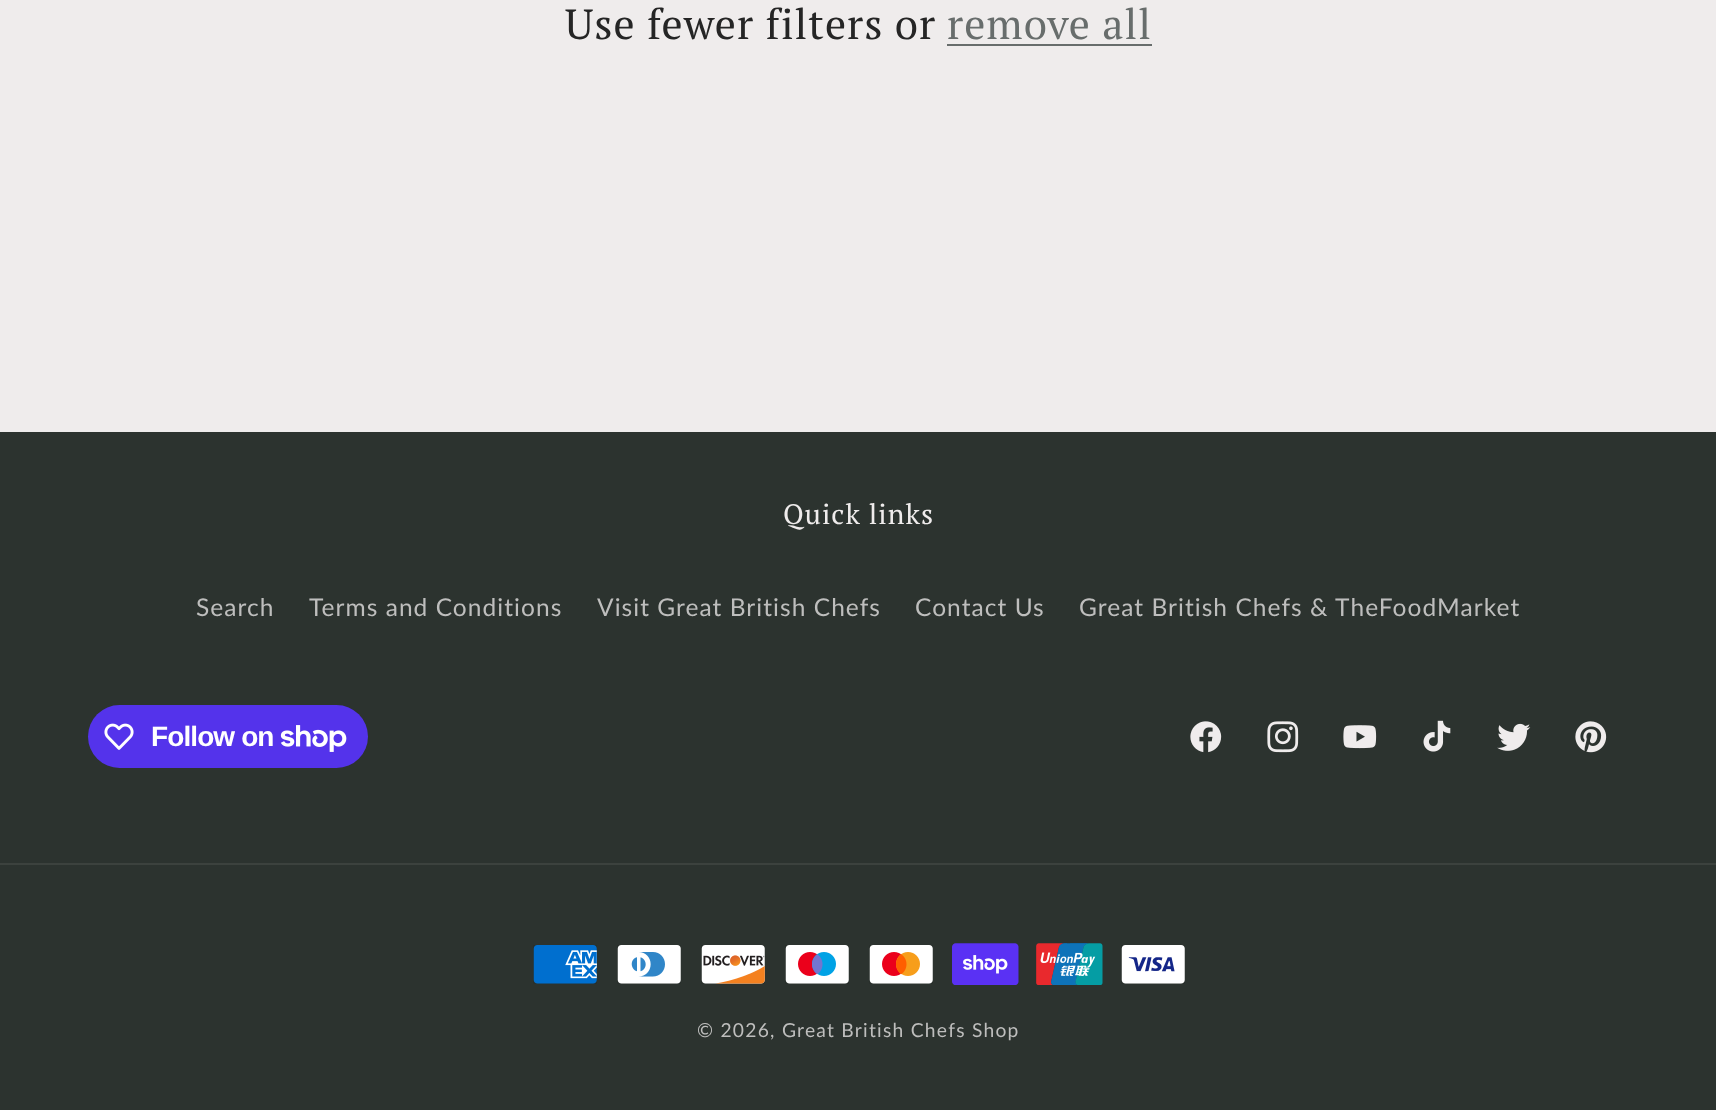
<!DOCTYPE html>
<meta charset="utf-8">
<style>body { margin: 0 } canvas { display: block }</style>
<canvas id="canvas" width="1716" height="1110"></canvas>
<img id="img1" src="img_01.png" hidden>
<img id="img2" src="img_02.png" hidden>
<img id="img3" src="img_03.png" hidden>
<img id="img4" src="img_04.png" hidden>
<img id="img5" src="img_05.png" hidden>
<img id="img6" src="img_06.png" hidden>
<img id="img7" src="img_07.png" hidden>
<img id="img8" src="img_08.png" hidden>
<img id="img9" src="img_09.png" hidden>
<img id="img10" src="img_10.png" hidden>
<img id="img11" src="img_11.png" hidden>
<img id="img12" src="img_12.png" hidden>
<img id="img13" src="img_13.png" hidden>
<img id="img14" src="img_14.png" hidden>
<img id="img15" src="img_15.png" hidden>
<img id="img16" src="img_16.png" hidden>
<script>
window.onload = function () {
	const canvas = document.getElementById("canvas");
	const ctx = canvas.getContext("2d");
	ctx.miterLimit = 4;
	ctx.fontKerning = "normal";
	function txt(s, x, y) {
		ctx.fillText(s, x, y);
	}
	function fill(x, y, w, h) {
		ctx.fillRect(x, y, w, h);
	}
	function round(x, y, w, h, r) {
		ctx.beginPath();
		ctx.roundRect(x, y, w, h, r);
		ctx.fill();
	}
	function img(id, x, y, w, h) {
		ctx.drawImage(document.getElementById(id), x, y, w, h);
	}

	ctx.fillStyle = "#EFECEC";
	fill(0, 0, 1716, 1110);
	ctx.fillStyle = "#686D6C";
	fill(947, 44, 205, 2);
	ctx.fillStyle = "#2C332F";
	fill(0, 432, 1716, 678);
	ctx.fillStyle = "#5433EB";
	round(88, 705, 280, 63, 31.5);
	img("img1", 104, 723, 30, 27);
	img("img2", 280, 725, 67, 27);
	img("img3", 1190, 721, 32, 32);
	img("img4", 1267, 721, 32, 32);
	img("img5", 1343, 725, 34, 24);
	img("img6", 1423, 720, 28, 32);
	img("img7", 1497, 723, 34, 28);
	img("img8", 1575, 721, 32, 32);
	ctx.fillStyle = "#3C423E";
	fill(0, 863, 1716, 2);
	img("img9", 533, 945, 64, 39);
	img("img10", 617, 945, 64, 39);
	img("img11", 701, 945, 64, 39);
	img("img12", 785, 945, 64, 39);
	img("img13", 869, 945, 64, 39);
	img("img14", 952, 943, 67, 42);
	img("img15", 1036, 943, 67, 42);
	img("img16", 1121, 945, 64, 39);
	ctx.letterSpacing = "1.05px";
	ctx.font = "42px PT Serif";
	ctx.fillStyle = "#252525";
	txt("Use fewer filters or", 565, 39);
	ctx.fillStyle = "#686D6C";
	txt("remove all", 947, 39);
	ctx.font = "28px PT Serif";
	ctx.fillStyle = "#EFECEC";
	txt("Quick links", 783, 524);
	ctx.font = "24.5px Lato";
	ctx.fillStyle = "#BEBEBD";
	txt("Search", 196, 616);
	txt("Terms and Conditions", 309, 616);
	txt("Visit Great British Chefs", 597, 616);
	txt("Contact Us", 915, 616);
	txt("Great British Chefs & TheFoodMarket", 1079, 616);
	ctx.letterSpacing = "-0.9px";
	ctx.font = "bold 28px Liberation Sans";
	ctx.fillStyle = "#FFFFFF";
	txt("Follow on", 151, 746);
	ctx.letterSpacing = "1.25px";
	ctx.font = "19.25px Lato";
	ctx.fillStyle = "#BEBEBD";
	txt("© 2026, Great British Chefs Shop", 697, 1037);
};
</script>
